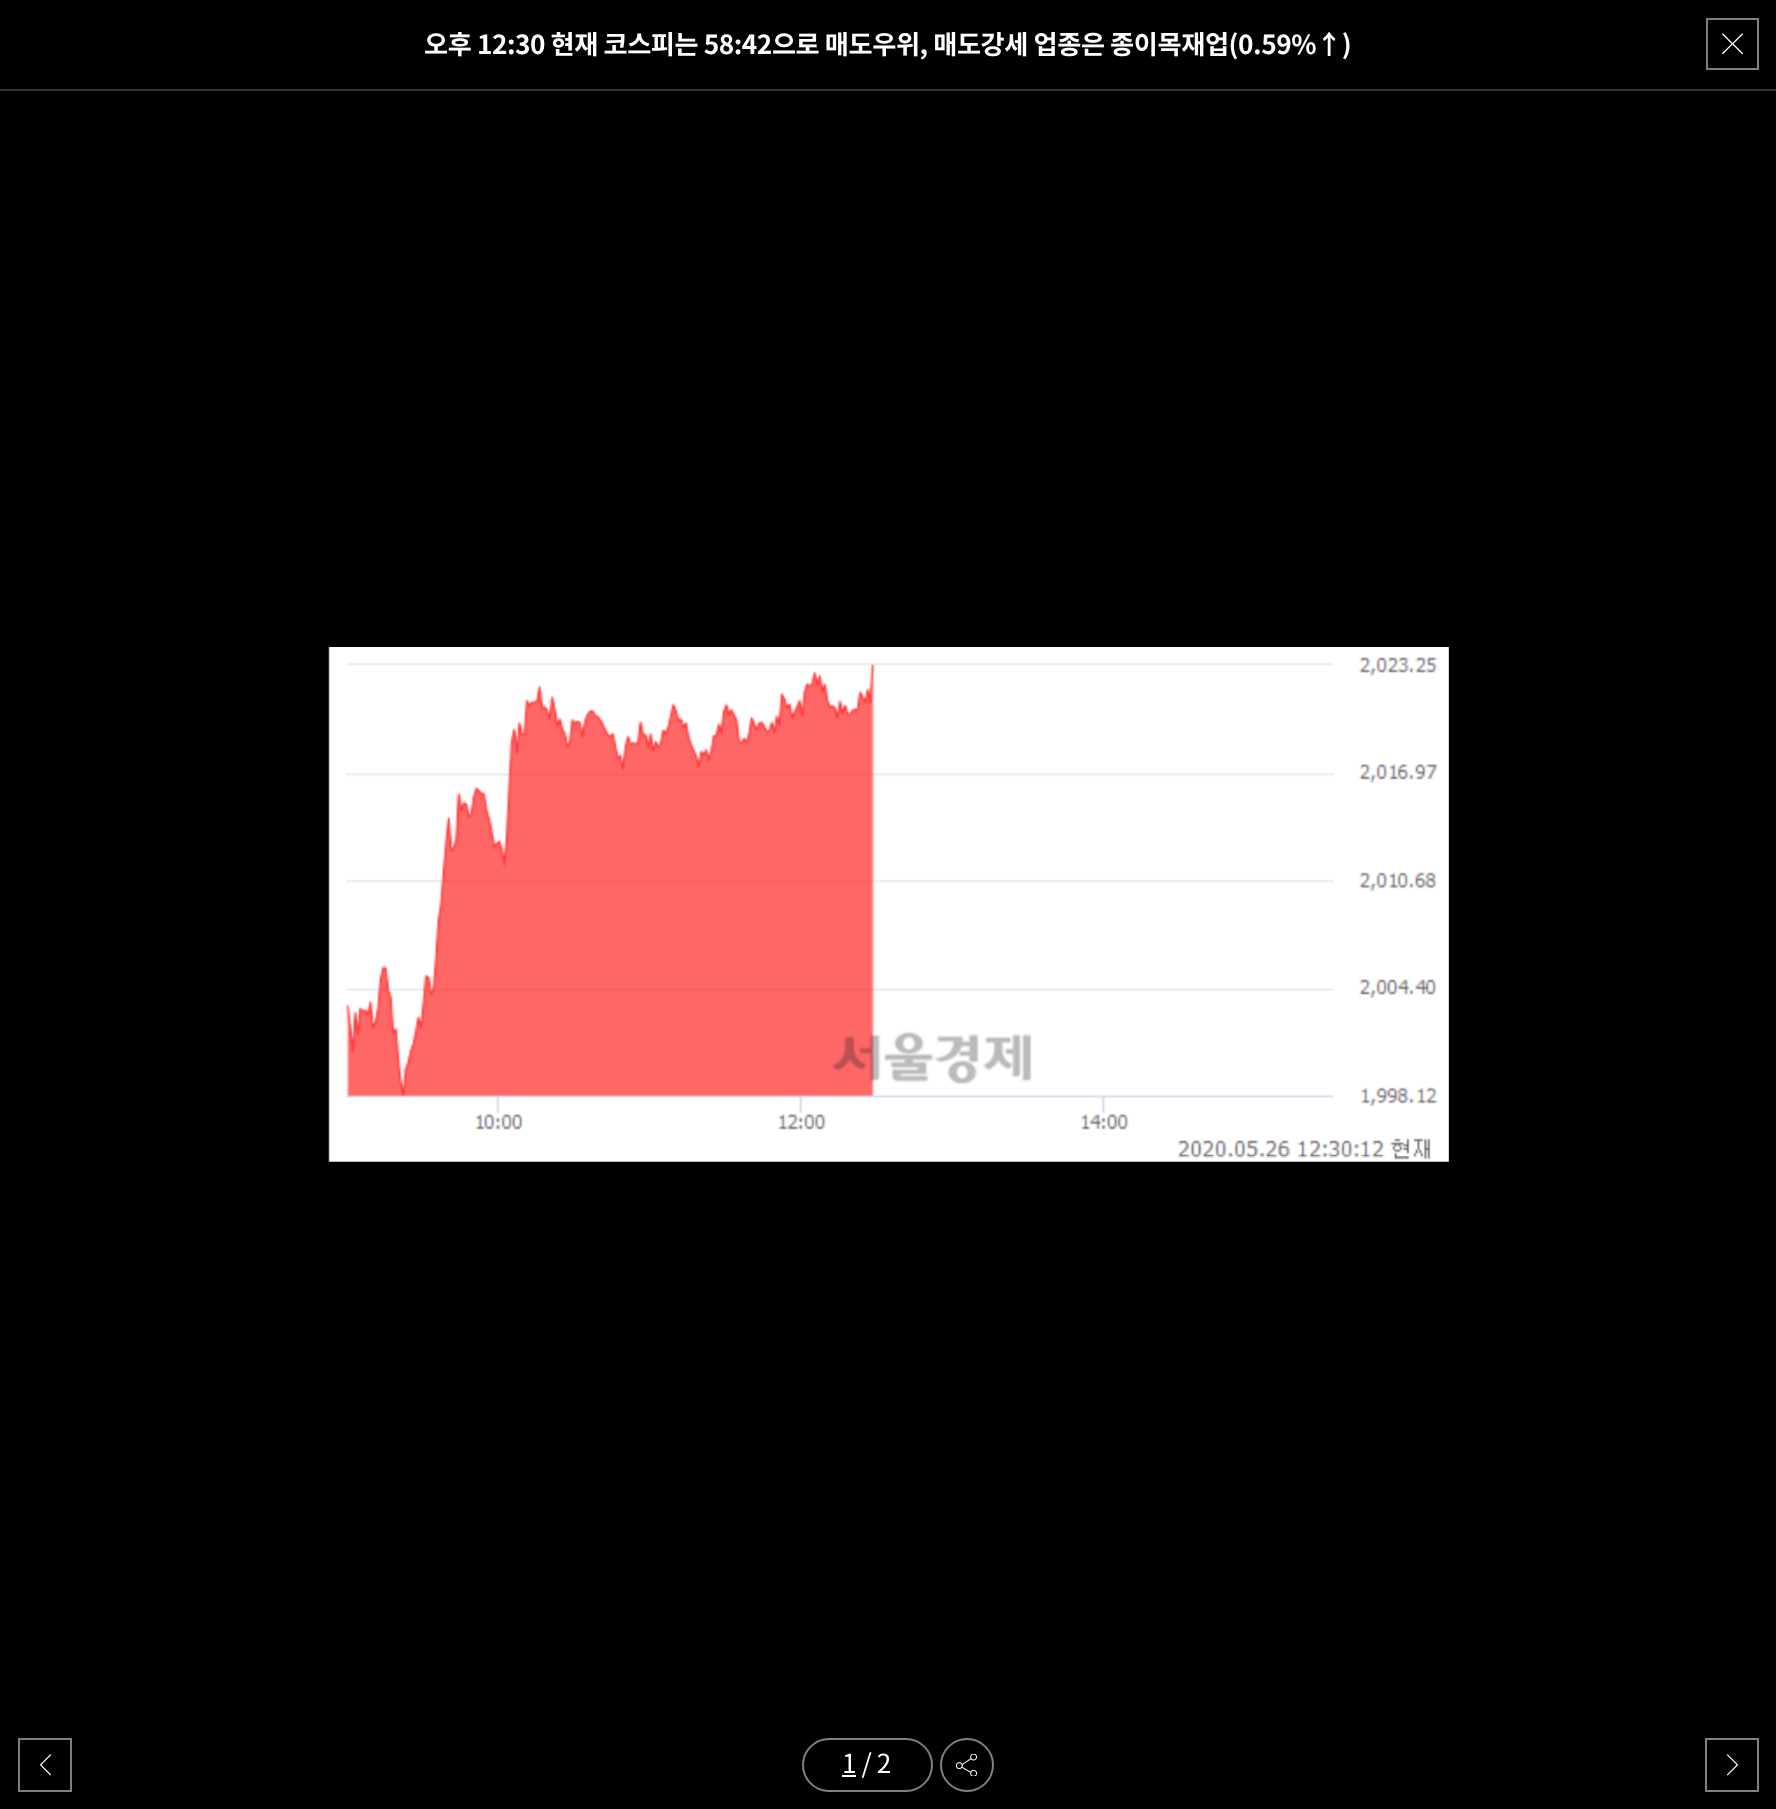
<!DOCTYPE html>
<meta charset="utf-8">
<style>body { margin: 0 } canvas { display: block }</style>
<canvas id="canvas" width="1776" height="1809"></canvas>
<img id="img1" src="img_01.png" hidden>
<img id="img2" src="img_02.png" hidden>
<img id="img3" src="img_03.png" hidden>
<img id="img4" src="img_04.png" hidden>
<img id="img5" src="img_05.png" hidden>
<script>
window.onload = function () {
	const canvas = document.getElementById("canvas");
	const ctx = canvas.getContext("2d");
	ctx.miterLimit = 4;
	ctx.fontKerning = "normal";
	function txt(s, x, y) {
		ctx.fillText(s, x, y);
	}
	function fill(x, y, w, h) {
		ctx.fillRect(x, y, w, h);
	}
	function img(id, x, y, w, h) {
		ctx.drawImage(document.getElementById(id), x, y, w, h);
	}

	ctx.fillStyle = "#000000";
	fill(0, 0, 1776, 1809);
	ctx.fillStyle = "#030000";
	fill(2, 5, 1768, 2);
	ctx.fillStyle = "#333333";
	fill(0, 89, 1776, 2);
	img("img1", 1722, 33, 21, 21);
	ctx.strokeStyle = "#808080";
	ctx.lineWidth = 2;
	ctx.strokeRect(1707, 19, 51, 50);
	img("img2", 328, 647, 1121, 515);
	img("img3", 40, 1754, 11, 22);
	ctx.strokeRect(19, 1739, 52, 52);
	ctx.beginPath();
	ctx.roundRect(803, 1739, 129, 52, 26);
	ctx.stroke();
	ctx.fillStyle = "#FFFFFF";
	fill(842, 1775, 14, 2);
	img("img4", 1727, 1754, 11, 22);
	ctx.strokeRect(1706, 1739, 52, 52);
	ctx.fillStyle = "#030000";
	fill(5, 1794, 1766, 3);
	img("img5", 956, 1754, 22, 22);
	ctx.beginPath();
	ctx.arc(967, 1765, 26, 0, Math.PI * 2);
	ctx.stroke();
	ctx.letterSpacing = "-0.45px";
	ctx.font = "bold 26.25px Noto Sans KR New";
	ctx.fillStyle = "#FFFFFF";
	txt("오후 12:30 현재 코스피는 58:42으로 매도우위, 매도강세 업종은 종이목재업(0.59%↑)", 424, 54);
	ctx.font = "26.25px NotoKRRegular";
	txt("1 / 2", 842, 1773);
};
</script>
